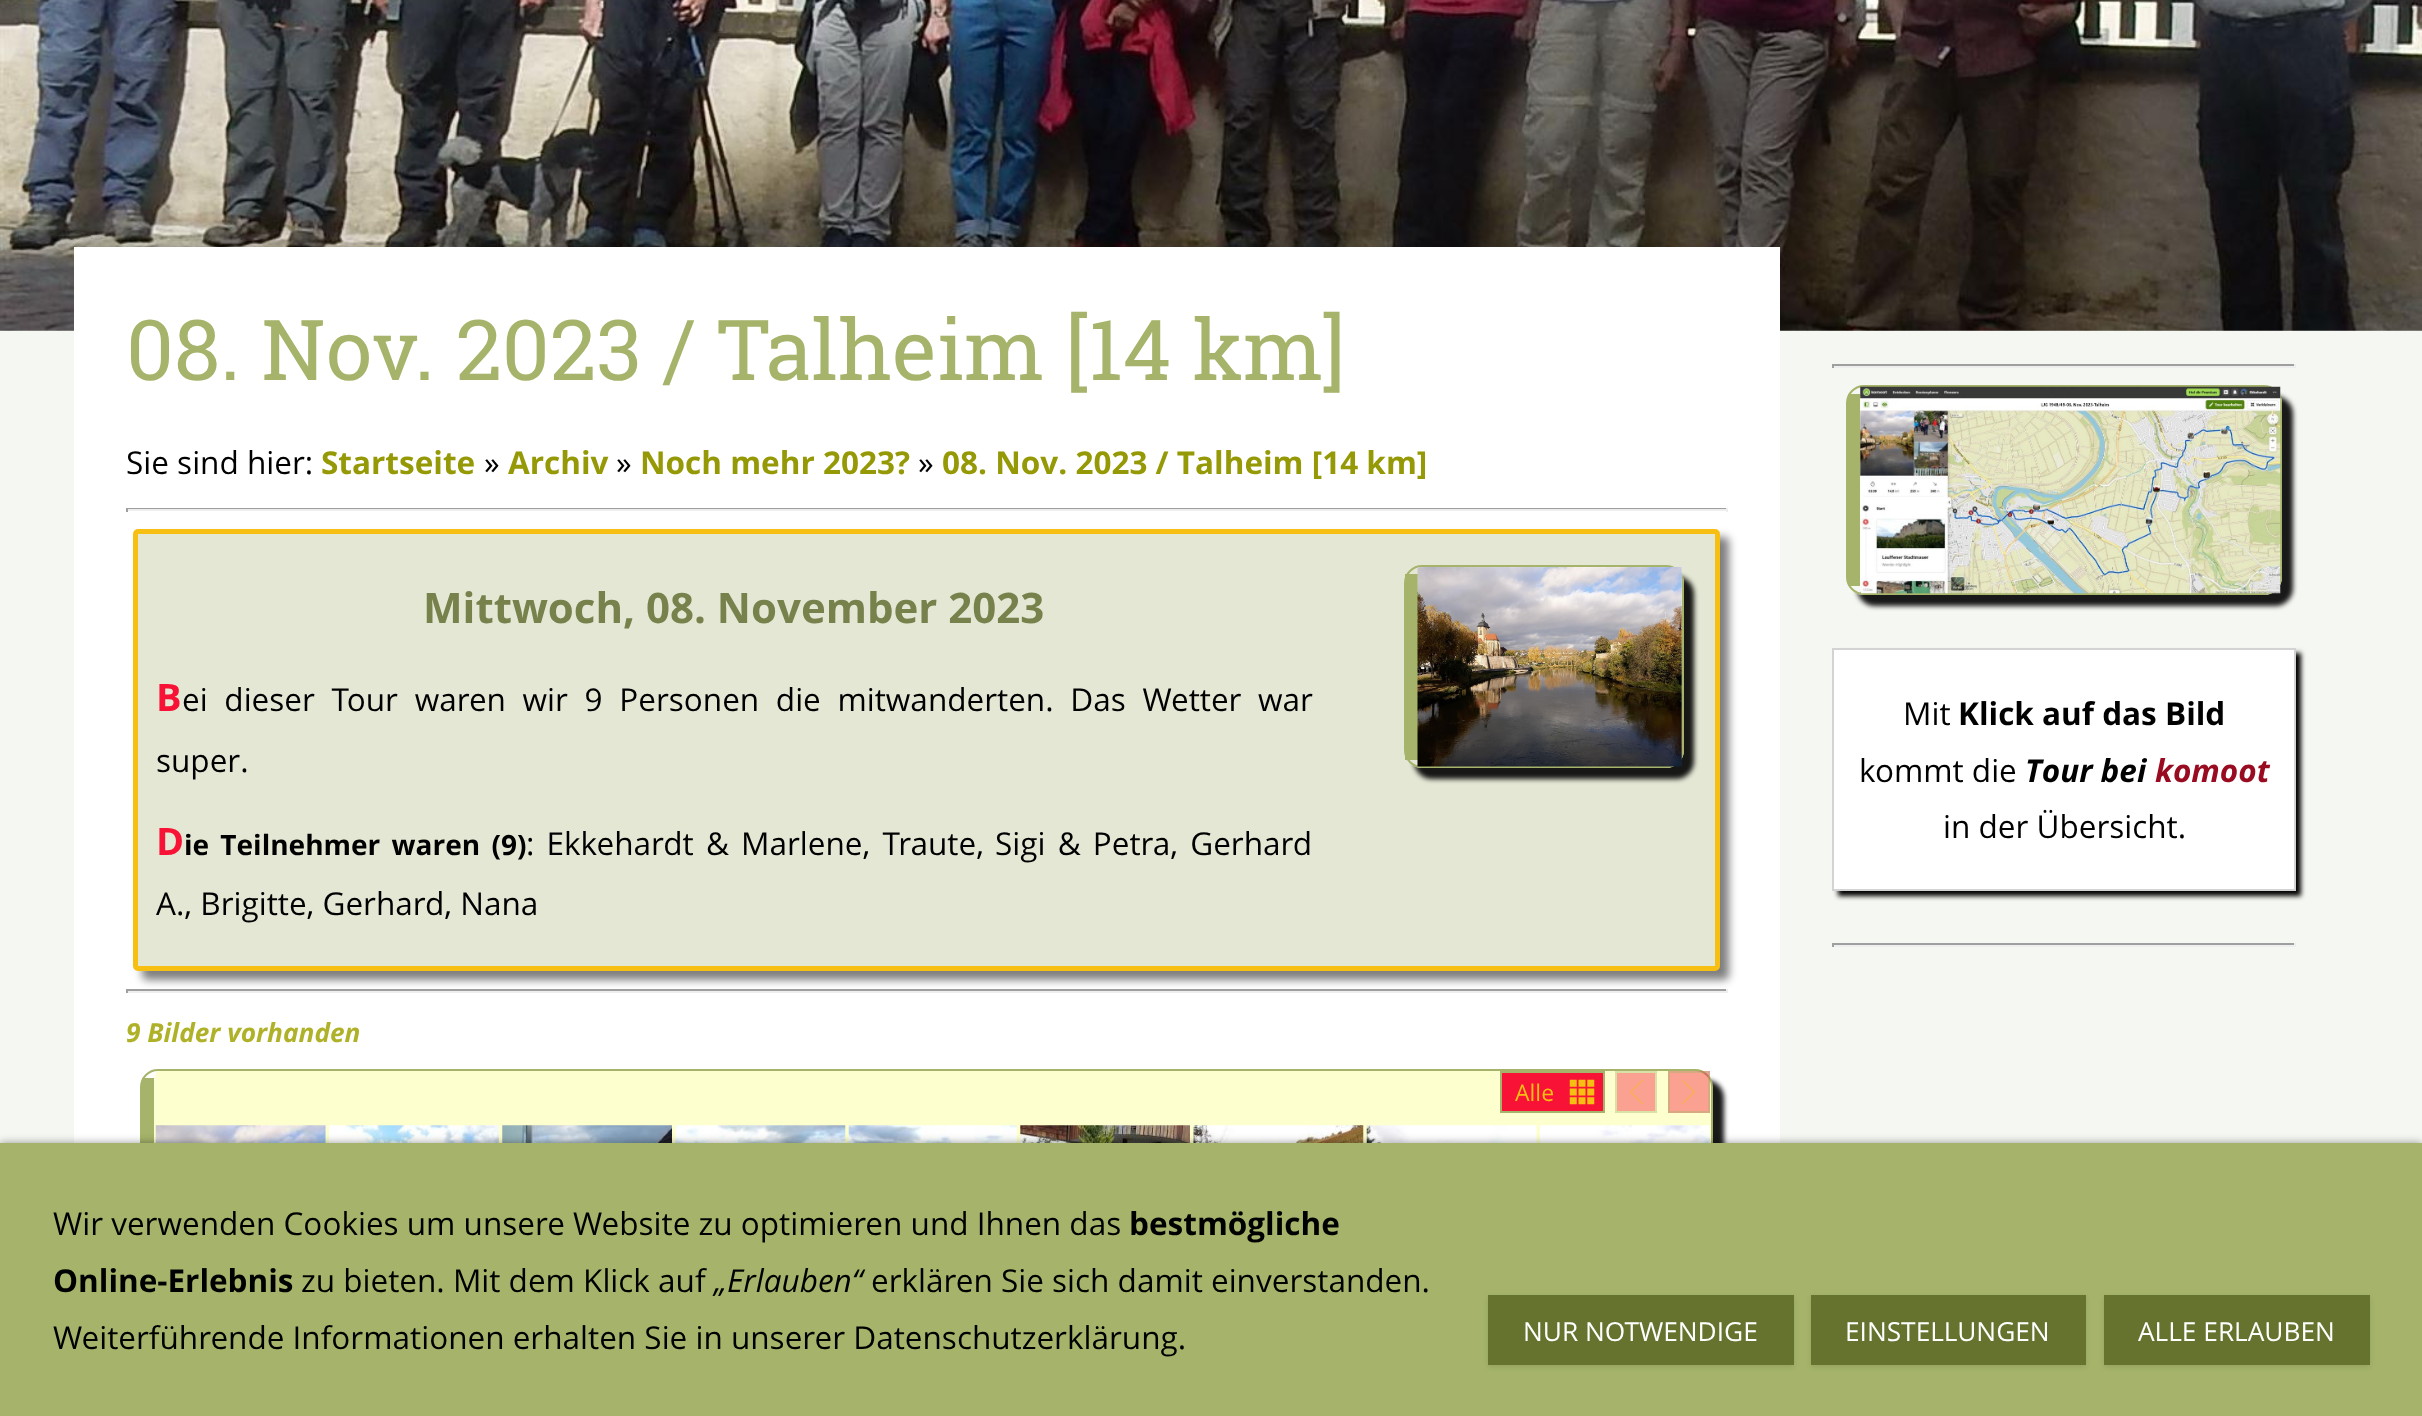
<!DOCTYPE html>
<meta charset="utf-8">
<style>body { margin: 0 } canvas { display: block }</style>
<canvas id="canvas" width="2422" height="1416"></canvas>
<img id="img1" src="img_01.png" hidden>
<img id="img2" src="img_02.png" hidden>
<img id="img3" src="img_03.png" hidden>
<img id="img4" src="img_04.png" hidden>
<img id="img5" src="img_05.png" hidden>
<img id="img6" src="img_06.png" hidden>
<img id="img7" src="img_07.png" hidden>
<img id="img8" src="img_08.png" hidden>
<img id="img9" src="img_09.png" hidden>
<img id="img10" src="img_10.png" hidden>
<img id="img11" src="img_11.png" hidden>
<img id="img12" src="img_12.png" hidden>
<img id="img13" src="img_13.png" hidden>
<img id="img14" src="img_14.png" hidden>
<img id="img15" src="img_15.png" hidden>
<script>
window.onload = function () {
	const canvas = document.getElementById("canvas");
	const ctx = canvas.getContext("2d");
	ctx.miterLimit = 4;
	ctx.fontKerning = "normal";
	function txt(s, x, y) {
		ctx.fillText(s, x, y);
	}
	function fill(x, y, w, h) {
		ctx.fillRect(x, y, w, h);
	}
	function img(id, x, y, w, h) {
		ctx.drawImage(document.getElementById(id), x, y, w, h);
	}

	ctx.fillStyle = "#F5F7F2";
	fill(0, 0, 2422, 1416);
	img("img1", 0, 0, 2422, 331);
	ctx.fillStyle = "#FFFFFF";
	fill(74, 247, 1706, 896);
	ctx.fillStyle = "#9F9F9F";
	fill(126, 508, 1601, 1);
	ctx.fillStyle = "#EEEEEE";
	fill(1726, 508, 2, 4);
	fill(126, 509, 1601, 2);
	ctx.fillStyle = "#9F9F9F";
	fill(126, 508, 2, 4);
	ctx.fillStyle = "rgba(0, 0, 0, 0.5)";
	ctx.filter = "blur(4.5px)";
	ctx.beginPath();
	ctx.roundRect(142, 537, 1587, 443, 5);
	ctx.fill();
	ctx.filter = "none";
	ctx.fillStyle = "#E3E7D4";
	ctx.beginPath();
	ctx.roundRect(135.5, 531.5, 1582, 437, 2.5);
	ctx.fill();
	ctx.strokeStyle = "#F8BF13";
	ctx.lineWidth = 5;
	ctx.stroke();
	ctx.save();
	ctx.beginPath();
	ctx.moveTo(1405, 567);
	ctx.lineTo(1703, 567);
	ctx.lineTo(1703, 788);
	ctx.lineTo(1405, 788);
	ctx.closePath();
	ctx.moveTo(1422, 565);
	ctx.lineTo(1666, 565);
	ctx.bezierCurveTo(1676, 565, 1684, 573, 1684, 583);
	ctx.lineTo(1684, 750);
	ctx.bezierCurveTo(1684, 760, 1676, 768, 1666, 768);
	ctx.lineTo(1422, 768);
	ctx.bezierCurveTo(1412, 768, 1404, 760, 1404, 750);
	ctx.lineTo(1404, 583);
	ctx.bezierCurveTo(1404, 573, 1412, 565, 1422, 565);
	ctx.closePath();
	ctx.clip("evenodd");
	ctx.fillStyle = "rgba(0, 0, 0, 0.9)";
	ctx.filter = "blur(2.5px)";
	ctx.beginPath();
	ctx.roundRect(1414, 576, 280, 203, 18);
	ctx.fill();
	ctx.filter = "none";
	ctx.restore();
	ctx.beginPath();
	ctx.roundRect(1405, 566, 278, 201, 17);
	ctx.strokeStyle = "#A5B46A";
	ctx.lineWidth = 2;
	ctx.stroke();
	ctx.fillStyle = "#A5B46A";
	fill(1405, 574, 13, 186);
	img("img2", 1417, 567, 265, 200);
	ctx.fillStyle = "#9F9F9F";
	fill(126, 989, 1601, 2);
	ctx.fillStyle = "#EEEEEE";
	fill(1726, 989, 2, 4);
	fill(126, 991, 1601, 2);
	ctx.fillStyle = "#9F9F9F";
	fill(126, 989, 2, 4);
	ctx.fillStyle = "rgba(0, 0, 0, 0.9)";
	ctx.filter = "blur(2.5px)";
	ctx.beginPath();
	ctx.roundRect(151, 1080, 1573, 229, 18);
	ctx.fill();
	ctx.filter = "none";
	ctx.fillStyle = "#FDFFCE";
	ctx.beginPath();
	ctx.moveTo(158, 1071);
	ctx.lineTo(1696, 1071);
	ctx.bezierCurveTo(1704, 1071, 1712, 1078, 1712, 1087);
	ctx.lineTo(1712, 1281);
	ctx.bezierCurveTo(1712, 1290, 1704, 1297, 1696, 1297);
	ctx.lineTo(158, 1297);
	ctx.bezierCurveTo(156, 1297, 154, 1290, 154, 1281);
	ctx.lineTo(154, 1087);
	ctx.bezierCurveTo(154, 1078, 156, 1071, 158, 1071);
	ctx.closePath();
	ctx.fill();
	ctx.beginPath();
	ctx.roundRect(141, 1070, 1571, 228, 17);
	ctx.stroke();
	ctx.fillStyle = "#A5B46A";
	fill(142, 1078, 12, 65);
	ctx.fillStyle = "#F81336";
	fill(1502, 1073, 101, 38);
	img("img3", 1569, 1079, 26, 26);
	ctx.strokeRect(1501, 1072, 103, 40);
	ctx.fillStyle = "#FBA191";
	fill(1617, 1073, 38, 38);
	img("img4", 1629, 1080, 14, 24);
	ctx.strokeStyle = "#DAE1A6";
	ctx.strokeRect(1616, 1072, 40, 40);
	ctx.fillStyle = "rgba(248, 19, 54, 0.4)";
	fill(1668, 1071, 42, 42);
	img("img5", 1682, 1080, 14, 24);
	ctx.strokeStyle = "rgba(165, 180, 106, 0.4)";
	ctx.strokeRect(1669, 1072, 40, 40);
	img("img6", 155, 1125, 171, 18);
	img("img7", 329, 1125, 170, 18);
	img("img8", 502, 1125, 170, 18);
	img("img9", 675, 1125, 171, 18);
	img("img10", 848, 1125, 169, 18);
	img("img11", 1020, 1125, 170, 18);
	img("img12", 1193, 1125, 171, 18);
	img("img13", 1366, 1125, 171, 18);
	img("img14", 1540, 1125, 170, 18);
	ctx.fillStyle = "#9F9F9F";
	fill(1832, 364, 464, 2);
	ctx.fillStyle = "#EEEEEE";
	fill(2294, 364, 2, 4);
	fill(1832, 366, 464, 2);
	ctx.fillStyle = "#9F9F9F";
	fill(1832, 364, 2, 4);
	ctx.save();
	ctx.beginPath();
	ctx.moveTo(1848, 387);
	ctx.lineTo(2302, 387);
	ctx.lineTo(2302, 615);
	ctx.lineTo(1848, 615);
	ctx.closePath();
	ctx.moveTo(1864, 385);
	ctx.lineTo(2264, 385);
	ctx.bezierCurveTo(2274, 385, 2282, 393, 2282, 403);
	ctx.lineTo(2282, 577);
	ctx.bezierCurveTo(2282, 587, 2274, 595, 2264, 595);
	ctx.lineTo(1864, 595);
	ctx.bezierCurveTo(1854, 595, 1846, 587, 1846, 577);
	ctx.lineTo(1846, 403);
	ctx.bezierCurveTo(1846, 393, 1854, 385, 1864, 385);
	ctx.closePath();
	ctx.clip("evenodd");
	ctx.fillStyle = "rgba(0, 0, 0, 0.9)";
	ctx.filter = "blur(2.5px)";
	ctx.beginPath();
	ctx.roundRect(1857, 396, 436, 210, 18);
	ctx.fill();
	ctx.filter = "none";
	ctx.restore();
	ctx.beginPath();
	ctx.roundRect(1847, 386, 434, 208, 17);
	ctx.strokeStyle = "#A5B46A";
	ctx.stroke();
	ctx.fillStyle = "#A5B46A";
	fill(1848, 394, 12, 192);
	img("img15", 1860, 386, 421, 208);
	ctx.fillStyle = "#000000";
	ctx.filter = "blur(2.5px)";
	ctx.beginPath();
	ctx.rect(1838, 653, 463, 243);
	ctx.fill();
	ctx.filter = "none";
	ctx.fillStyle = "#FFFFFF";
	ctx.beginPath();
	ctx.rect(1833, 649, 462, 241);
	ctx.fill();
	ctx.strokeStyle = "#D3D3D3";
	ctx.stroke();
	ctx.fillStyle = "#9F9F9F";
	fill(1832, 943, 464, 2);
	ctx.fillStyle = "#EEEEEE";
	fill(2294, 943, 2, 4);
	fill(1832, 945, 464, 2);
	ctx.fillStyle = "#9F9F9F";
	fill(1832, 943, 2, 4);
	ctx.fillStyle = "rgba(0, 0, 0, 0.4)";
	ctx.filter = "blur(4.5px)";
	ctx.beginPath();
	ctx.rect(0, 1143, 2422, 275);
	ctx.fill();
	ctx.filter = "none";
	ctx.fillStyle = "#A5B46A";
	fill(0, 1143, 2422, 273);
	ctx.fillStyle = "rgba(0, 0, 0, 0.1)";
	ctx.filter = "blur(2.5px)";
	ctx.beginPath();
	ctx.rect(1488, 1297, 306, 70);
	ctx.fill();
	ctx.filter = "none";
	ctx.fillStyle = "#65732E";
	fill(1488, 1295, 306, 70);
	ctx.fillStyle = "rgba(0, 0, 0, 0.1)";
	ctx.filter = "blur(2.5px)";
	ctx.beginPath();
	ctx.rect(1811, 1297, 275, 70);
	ctx.fill();
	ctx.filter = "none";
	ctx.fillStyle = "#65732E";
	fill(1811, 1295, 275, 70);
	ctx.fillStyle = "rgba(0, 0, 0, 0.1)";
	ctx.filter = "blur(2.5px)";
	ctx.beginPath();
	ctx.rect(2104, 1297, 266, 70);
	ctx.fill();
	ctx.filter = "none";
	ctx.fillStyle = "#65732E";
	fill(2104, 1295, 266, 70);
	ctx.font = "84px Roboto Slab";
	ctx.fillStyle = "#A5B46A";
	txt("08. Nov. 2023 / Talheim [14 km]", 126, 380);
	ctx.font = "31.5px Open Sans";
	ctx.fillStyle = "#000000";
	txt("Sie sind hier:", 126, 474);
	ctx.font = "bold 31.5px Open Sans";
	ctx.fillStyle = "#959906";
	txt("Startseite", 321, 474);
	ctx.font = "31.5px Open Sans";
	ctx.fillStyle = "#000000";
	txt("»", 484, 474);
	ctx.font = "bold 31.5px Open Sans";
	ctx.fillStyle = "#959906";
	txt("Archiv", 508, 474);
	ctx.font = "31.5px Open Sans";
	ctx.fillStyle = "#000000";
	txt("»", 616, 474);
	ctx.font = "bold 31.5px Open Sans";
	ctx.fillStyle = "#959906";
	txt("Noch mehr 2023?", 640, 474);
	ctx.font = "31.5px Open Sans";
	ctx.fillStyle = "#000000";
	txt("»", 918, 474);
	ctx.font = "bold 31.5px Open Sans";
	ctx.fillStyle = "#959906";
	txt("08. Nov. 2023 / Talheim [14 km]", 942, 474);
	ctx.font = "bold 42px Open Sans";
	ctx.fillStyle = "#76814B";
	txt("Mittwoch, 08. November 2023", 423, 623);
	ctx.font = "bold 38px Open Sans";
	ctx.fillStyle = "#F81336";
	txt("B", 156, 711);
	ctx.wordSpacing = "8.5px";
	ctx.font = "31.5px Open Sans";
	ctx.fillStyle = "#000000";
	txt("ei dieser Tour waren wir 9 Personen die mitwanderten. Das Wetter war", 182, 711);
	ctx.wordSpacing = "0px";
	txt("super.", 156, 772);
	ctx.font = "bold 38px Open Sans";
	ctx.fillStyle = "#F81336";
	txt("D", 156, 855);
	ctx.wordSpacing = "4px";
	ctx.font = "bold 28px Open Sans";
	ctx.fillStyle = "#000000";
	txt("ie Teilnehmer waren (9)", 184, 855);
	ctx.font = "31.5px Open Sans";
	txt(": Ekkehardt & Marlene, Traute,", 526, 855);
	txt("Sigi & Petra, Gerhard", 995, 855);
	ctx.wordSpacing = "0px";
	txt("A., Brigitte, Gerhard, Nana", 156, 915);
	ctx.font = "italic bold 26.25px Open Sans";
	ctx.fillStyle = "#AFB229";
	txt("9 Bilder vorhanden", 126, 1042);
	ctx.font = "23px Open Sans";
	ctx.fillStyle = "#F8BF13";
	txt("Alle", 1515, 1101);
	ctx.font = "31.5px Open Sans";
	ctx.fillStyle = "#000000";
	txt("Mit", 1903, 725);
	ctx.font = "bold 31.5px Open Sans";
	txt("Klick auf das Bild", 1958, 725);
	ctx.font = "31.5px Open Sans";
	txt("kommt die", 1859, 782);
	ctx.font = "italic bold 31.5px Open Sans";
	txt("Tour bei", 2025, 782);
	ctx.fillStyle = "#990B21";
	txt("komoot", 2155, 782);
	ctx.font = "31.5px Open Sans";
	ctx.fillStyle = "#000000";
	txt("in der Übersicht.", 1943, 838);
	txt("Wir verwenden Cookies um unsere Website zu optimieren und Ihnen das", 53, 1235);
	ctx.font = "bold 31.5px Open Sans";
	txt("bestmögliche", 1129, 1235);
	txt("Online-Erlebnis", 53, 1292);
	ctx.font = "31.5px Open Sans";
	txt("zu bieten. Mit dem Klick auf", 301, 1292);
	ctx.font = "italic 31.5px Open Sans";
	txt("„Erlauben“", 714, 1292);
	ctx.font = "31.5px Open Sans";
	txt("erklären Sie sich damit einverstanden.", 871, 1292);
	txt("Weiterführende Informationen erhalten Sie in unserer Datenschutzerklärung.", 53, 1349);
	ctx.font = "26.25px Open Sans";
	ctx.fillStyle = "#FFFFFF";
	txt("NUR NOTWENDIGE", 1523, 1341);
	txt("EINSTELLUNGEN", 1845, 1341);
	txt("ALLE ERLAUBEN", 2138, 1341);
};
</script>
